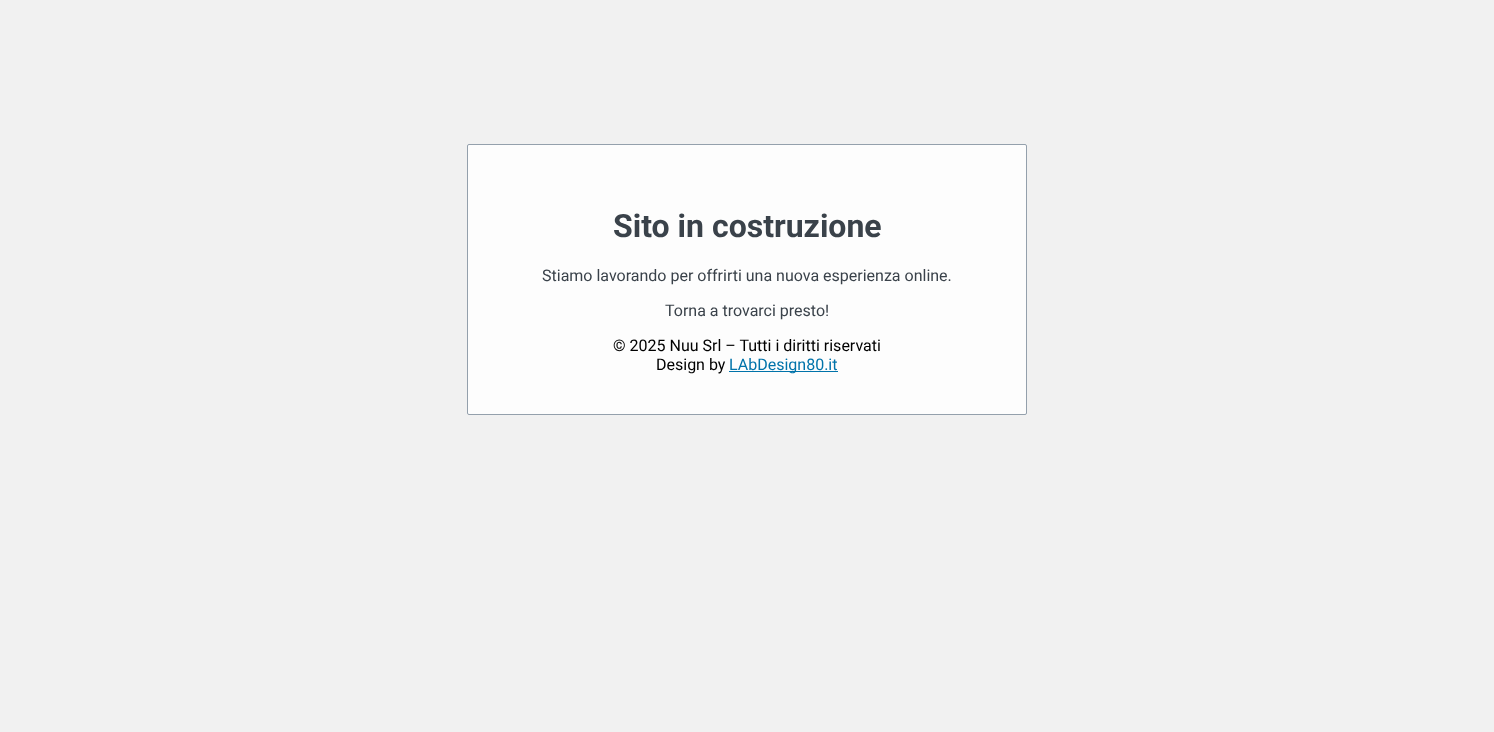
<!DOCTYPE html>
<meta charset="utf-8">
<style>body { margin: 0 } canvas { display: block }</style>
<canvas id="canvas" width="1494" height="732"></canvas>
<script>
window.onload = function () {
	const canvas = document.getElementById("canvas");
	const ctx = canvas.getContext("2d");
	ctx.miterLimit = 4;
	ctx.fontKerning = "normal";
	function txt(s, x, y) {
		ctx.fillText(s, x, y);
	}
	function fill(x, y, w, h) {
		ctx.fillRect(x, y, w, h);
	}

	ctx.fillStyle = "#F1F1F1";
	fill(0, 0, 1494, 732);
	ctx.fillStyle = "#FDFDFD";
	ctx.beginPath();
	ctx.roundRect(467.5, 144.5, 559, 270, 1.5);
	ctx.fill();
	ctx.strokeStyle = "#94A0AC";
	ctx.stroke();
	ctx.fillStyle = "#0073AA";
	fill(729, 371, 109, 1);
	ctx.font = "bold 32px Roboto";
	ctx.fillStyle = "#3A424A";
	txt("Sito in costruzione", 613, 237);
	ctx.font = "16px Roboto";
	txt("Stiamo lavorando per offrirti una nuova esperienza online.", 542, 281);
	txt("Torna a trovarci presto!", 665, 316);
	ctx.fillStyle = "#000000";
	txt("© 2025 Nuu Srl – Tutti i diritti riservati", 613, 351);
	txt("Design by", 656, 370);
	ctx.fillStyle = "#0073AA";
	txt("LAbDesign80.it", 729, 370);
};
</script>
